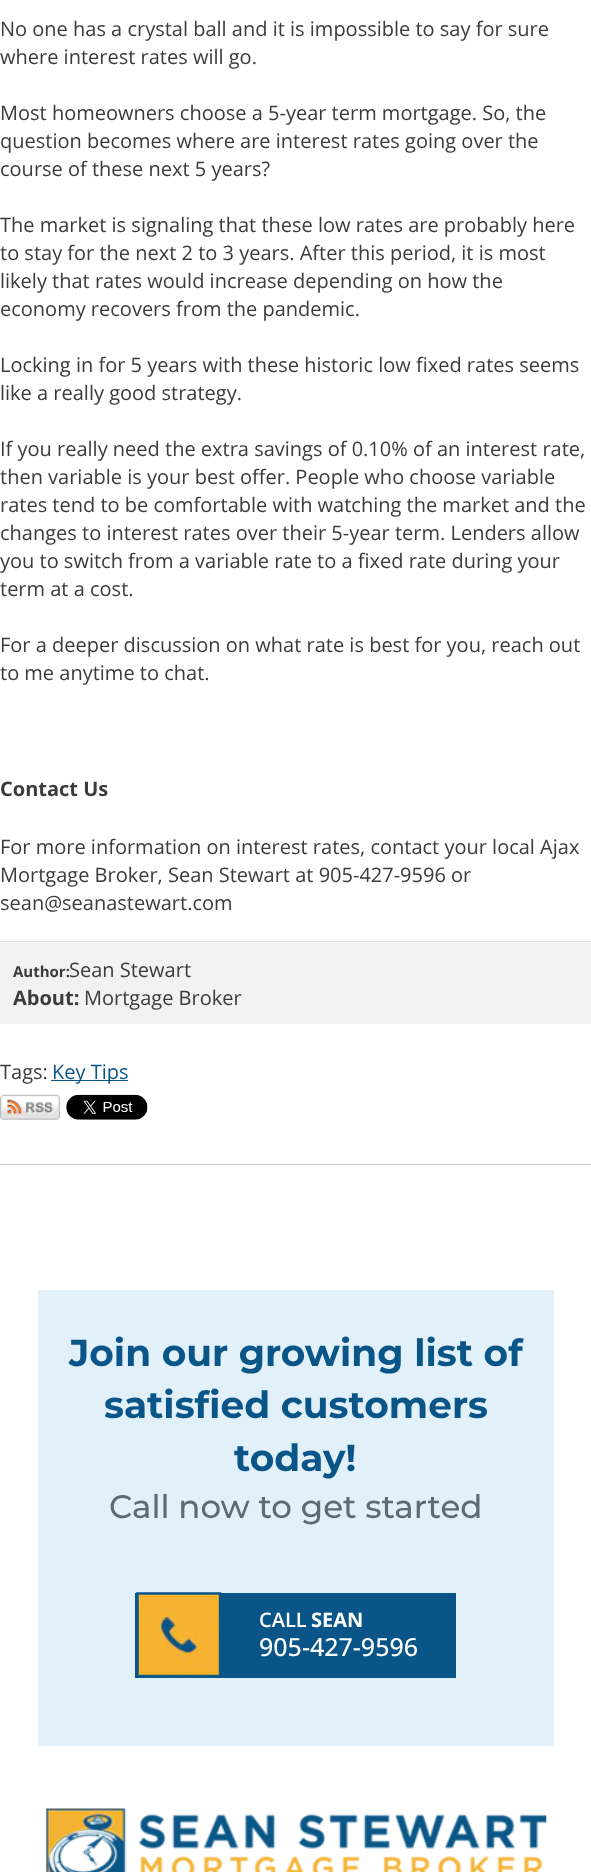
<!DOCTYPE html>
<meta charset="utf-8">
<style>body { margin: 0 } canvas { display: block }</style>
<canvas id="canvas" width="591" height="1872"></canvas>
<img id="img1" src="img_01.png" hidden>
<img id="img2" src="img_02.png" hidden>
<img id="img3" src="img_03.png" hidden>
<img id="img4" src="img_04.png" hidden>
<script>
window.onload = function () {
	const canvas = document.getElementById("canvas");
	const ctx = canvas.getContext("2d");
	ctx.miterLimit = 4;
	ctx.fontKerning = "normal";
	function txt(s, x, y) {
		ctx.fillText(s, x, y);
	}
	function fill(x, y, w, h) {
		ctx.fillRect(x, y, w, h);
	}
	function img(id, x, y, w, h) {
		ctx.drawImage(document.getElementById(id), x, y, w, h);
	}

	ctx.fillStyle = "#FFFFFF";
	fill(0, 0, 591, 1872);
	ctx.fillStyle = "#CCCCCC";
	fill(0, 1164, 591, 1);
	ctx.fillStyle = "#F2F2F2";
	fill(0, 942, 591, 82);
	ctx.fillStyle = "#E0E0E0";
	fill(0, 941, 591, 1);
	ctx.fillStyle = "#0A5587";
	fill(51, 1080, 77, 1);
	img("img1", 0, 1094, 60, 26);
	img("img2", 66, 1094, 82, 26);
	ctx.fillStyle = "#E2F0F9";
	fill(38, 1290, 516, 456);
	ctx.fillStyle = "#0A5587";
	fill(135, 1593, 321, 85);
	img("img3", 136, 1592, 86, 86);
	img("img4", 46, 1808, 501, 64);
	ctx.font = "20px Open Sans";
	ctx.fillStyle = "#3C3B3B";
	txt("No one has a crystal ball and it is impossible to say for sure", 0, 36);
	txt("where interest rates will go.", 0, 64);
	txt("Most homeowners choose a 5-year term mortgage. So, the", 0, 120);
	txt("question becomes where are interest rates going over the", 0, 148);
	txt("course of these next 5 years?", 0, 176);
	txt("The market is signaling that these low rates are probably here", 0, 232);
	txt("to stay for the next 2 to 3 years. After this period, it is most", 0, 260);
	txt("likely that rates would increase depending on how the", 0, 288);
	txt("economy recovers from the pandemic.", 0, 316);
	txt("Locking in for 5 years with these historic low fixed rates seems", 0, 372);
	txt("like a really good strategy.", 0, 400);
	txt("If you really need the extra savings of 0.10% of an interest rate,", 0, 456);
	txt("then variable is your best offer. People who choose variable", 0, 484);
	txt("rates tend to be comfortable with watching the market and the", 0, 512);
	txt("changes to interest rates over their 5-year term. Lenders allow", 0, 540);
	txt("you to switch from a variable rate to a fixed rate during your", 0, 568);
	txt("term at a cost.", 0, 596);
	txt("For a deeper discussion on what rate is best for you, reach out", 0, 652);
	txt("to me anytime to chat.", 0, 680);
	ctx.font = "bold 20px Open Sans";
	txt("Contact Us", 0, 796);
	ctx.font = "20px Open Sans";
	txt("For more information on interest rates, contact your local Ajax", 0, 854);
	txt("Mortgage Broker, Sean Stewart at 905-427-9596 or", 0, 882);
	txt("sean@seanastewart.com", 0, 910);
	ctx.font = "bold 15px Open Sans";
	txt("Author:", 13, 977);
	ctx.font = "20px Open Sans";
	txt("Sean Stewart", 69, 977);
	ctx.font = "bold 20px Open Sans";
	txt("About:", 13, 1005);
	ctx.font = "20px Open Sans";
	txt("Mortgage Broker", 84, 1005);
	txt("Tags:", 0, 1079);
	ctx.fillStyle = "#0A5587";
	txt("Key Tips", 52, 1079);
	ctx.font = "bold 37.5px Montserrat";
	txt("Join our growing list of", 69, 1366);
	txt("satisfied customers", 104, 1418);
	txt("today!", 234, 1471);
	ctx.font = "500 32.5px Montserrat";
	ctx.fillStyle = "#5E6A72";
	txt("Call now to get started", 109, 1518);
	ctx.font = "600 20px Open Sans";
	ctx.fillStyle = "#FFFFFF";
	txt("CALL", 259, 1627);
	ctx.font = "bold 20px Open Sans";
	txt("SEAN", 311, 1627);
	ctx.font = "500 25px Open Sans";
	txt("905-427-9596", 259, 1656);
};
</script>
